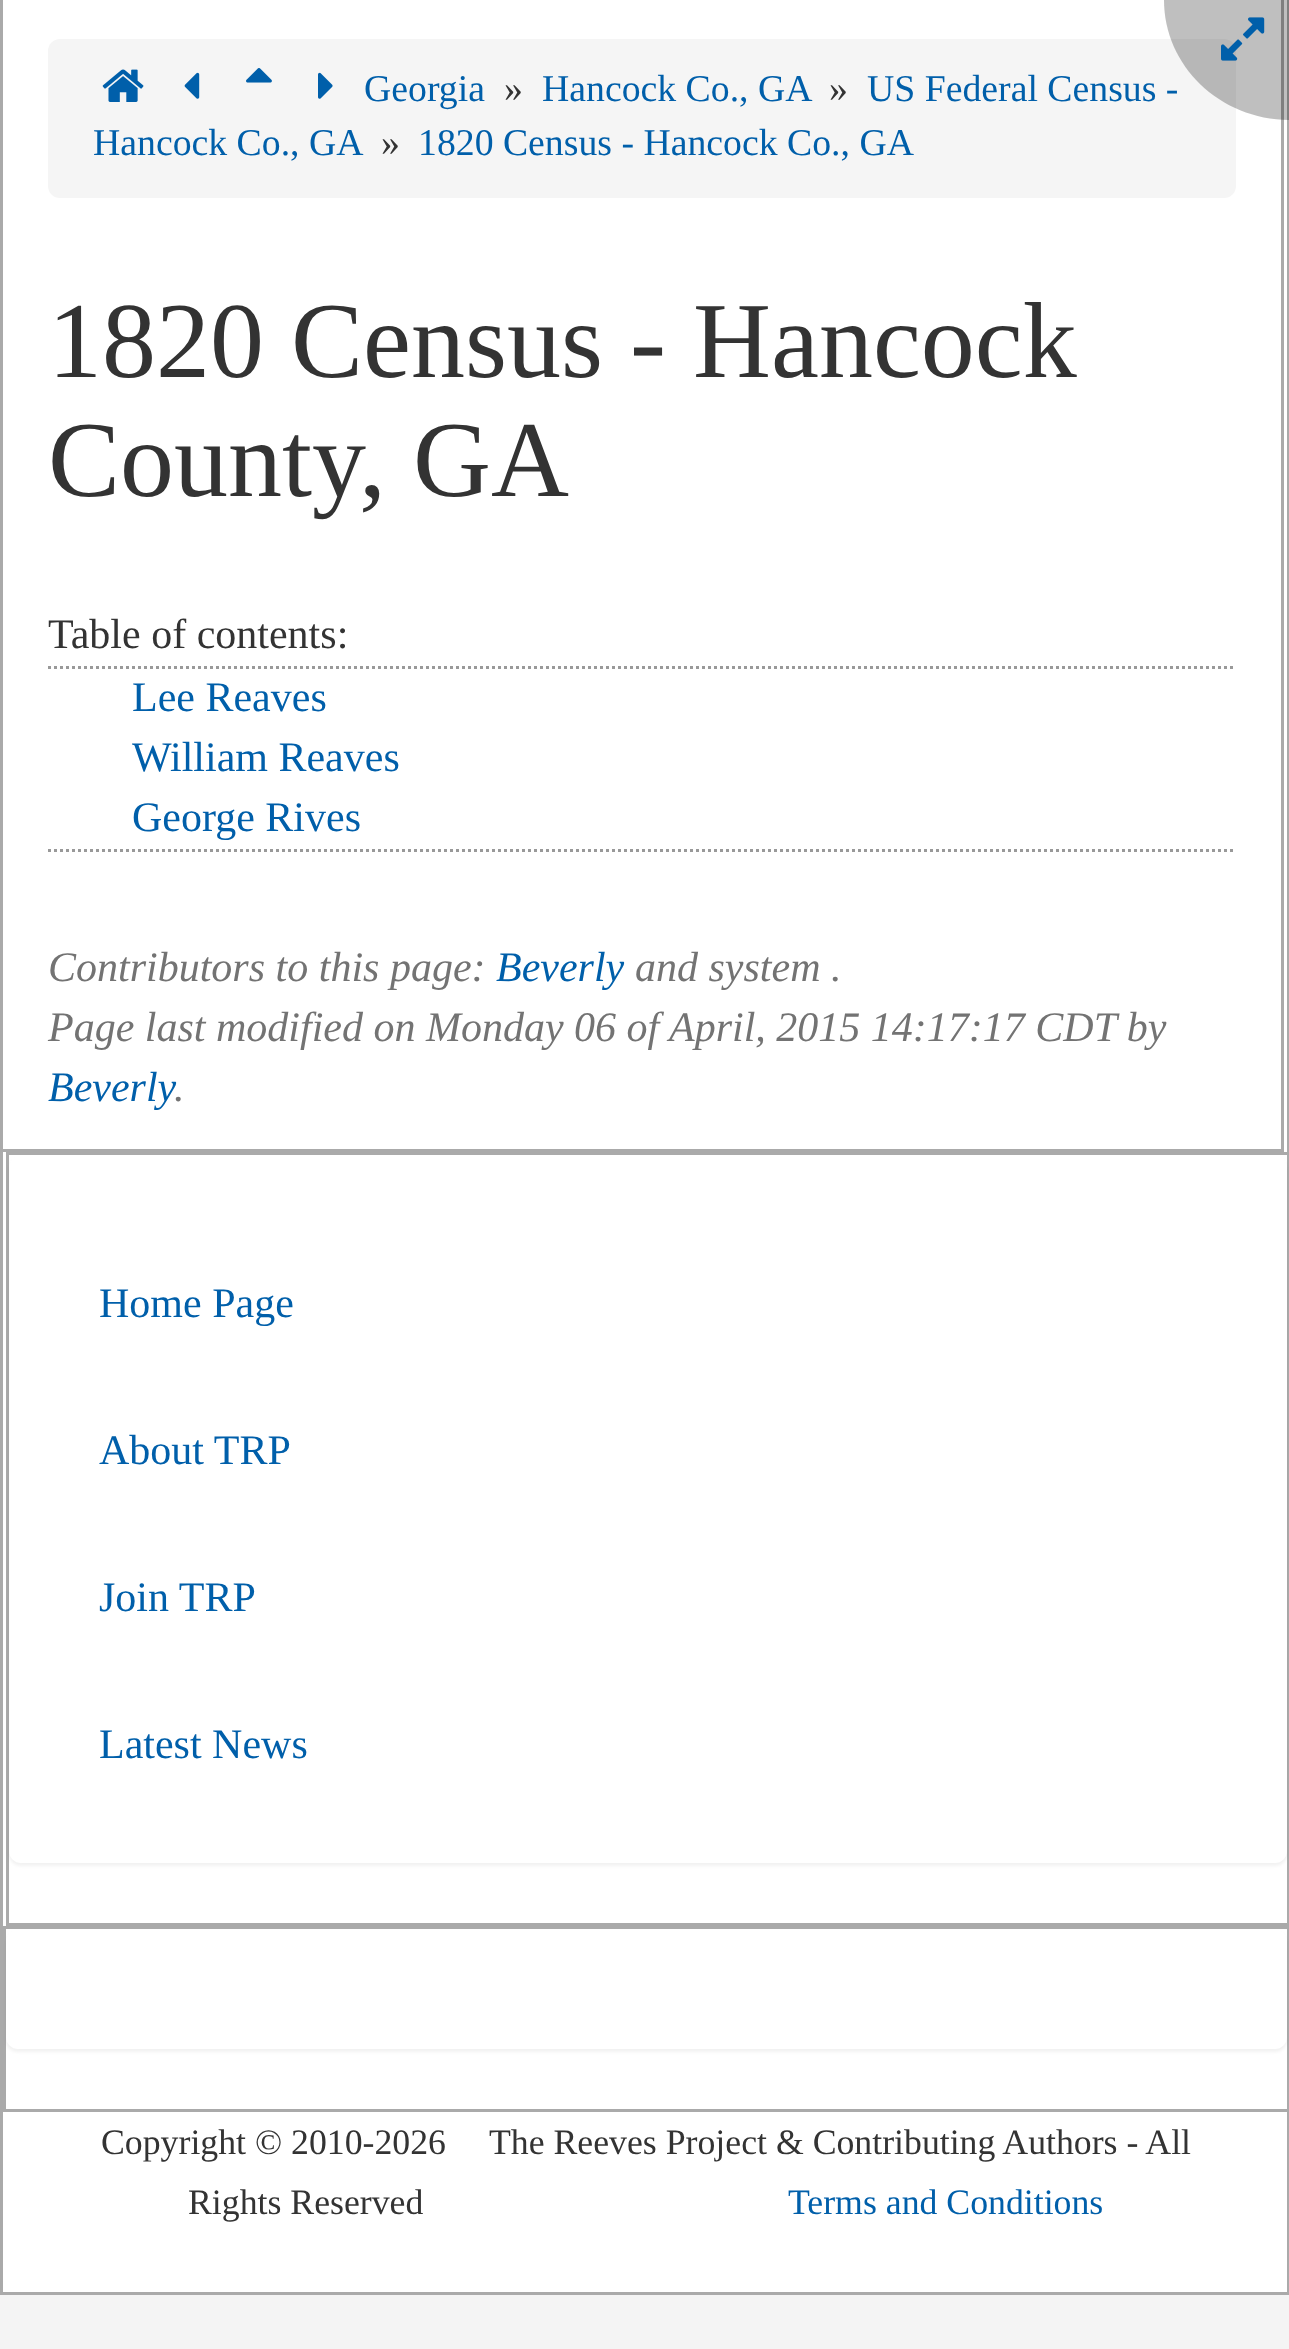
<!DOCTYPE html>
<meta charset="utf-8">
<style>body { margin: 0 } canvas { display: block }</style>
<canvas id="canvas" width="1289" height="2349"></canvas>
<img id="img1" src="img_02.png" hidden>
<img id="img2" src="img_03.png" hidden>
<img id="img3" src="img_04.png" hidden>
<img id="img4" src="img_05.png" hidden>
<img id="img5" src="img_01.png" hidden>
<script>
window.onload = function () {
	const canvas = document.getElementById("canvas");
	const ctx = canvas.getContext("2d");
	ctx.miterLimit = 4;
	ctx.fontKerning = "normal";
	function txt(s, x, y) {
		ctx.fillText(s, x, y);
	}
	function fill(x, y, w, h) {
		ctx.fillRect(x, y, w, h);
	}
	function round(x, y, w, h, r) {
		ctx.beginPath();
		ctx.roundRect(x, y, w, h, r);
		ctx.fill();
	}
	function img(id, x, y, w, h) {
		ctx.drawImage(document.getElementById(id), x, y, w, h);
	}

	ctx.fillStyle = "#F4F4F4";
	fill(0, 0, 1289, 2349);
	ctx.fillStyle = "#FFFFFF";
	ctx.beginPath();
	ctx.rect(1.5, -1.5, 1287, 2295);
	ctx.fill();
	ctx.strokeStyle = "#AAAAAA";
	ctx.lineWidth = 3;
	ctx.stroke();
	ctx.strokeRect(1.5, -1.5, 1281, 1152);
	ctx.fillStyle = "#F5F5F5";
	round(48, 39, 1188, 159, 12);
	img("img1", 102, 69, 42, 33);
	img("img2", 184, 72, 16, 27);
	img("img3", 246, 68, 26, 15);
	img("img4", 318, 72, 15, 27);
	ctx.beginPath();
	ctx.moveTo(48, 667.5);
	ctx.lineTo(1236, 667.5);
	ctx.strokeStyle = "#999999";
	ctx.setLineDash([3, 3]);
	ctx.stroke();
	ctx.beginPath();
	ctx.moveTo(48, 850.5);
	ctx.lineTo(1236, 850.5);
	ctx.stroke();
	ctx.strokeStyle = "#AAAAAA";
	ctx.setLineDash([]);
	ctx.strokeRect(7.5, 1153.5, 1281, 771);
	ctx.fillStyle = "rgba(0, 0, 0, 0.05)";
	ctx.filter = "blur(1.5px)";
	ctx.beginPath();
	ctx.roundRect(9, 1158, 1278, 708, 12);
	ctx.fill();
	ctx.filter = "none";
	ctx.fillStyle = "#FFFFFF";
	round(9, 1155, 1278, 708, 12);
	ctx.fillStyle = "#AAAAAA";
	fill(3, 1926, 1284, 3);
	fill(3, 2109, 1284, 3);
	fill(3, 1926, 3, 186);
	ctx.fillStyle = "rgba(0, 0, 0, 0.05)";
	ctx.filter = "blur(1.5px)";
	ctx.beginPath();
	ctx.roundRect(6, 1932, 1281, 120, 12);
	ctx.fill();
	ctx.filter = "none";
	ctx.fillStyle = "#FFFFFF";
	round(6, 1929, 1281, 120, 12);
	ctx.font = "37.75px Liberation Serif";
	ctx.fillStyle = "#005FAA";
	txt("Georgia", 364, 101);
	ctx.fillStyle = "#333333";
	txt("»", 504, 101);
	ctx.fillStyle = "#005FAA";
	txt("Hancock Co., GA", 542, 101);
	ctx.fillStyle = "#333333";
	txt("»", 829, 101);
	ctx.fillStyle = "#005FAA";
	txt("US Federal Census -", 867, 101);
	ctx.fillStyle = "rgba(0, 0, 0, 0.25)";
	ctx.beginPath();
	ctx.moveTo(1164, 0);
	ctx.lineTo(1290, 0);
	ctx.lineTo(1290, 120);
	ctx.bezierCurveTo(1220, 120, 1164, 66, 1164, 0);
	ctx.closePath();
	ctx.fill();
	img("img5", 1221, 17, 44, 44);
	ctx.fillStyle = "#005FAA";
	txt("Hancock Co., GA", 93, 155);
	ctx.fillStyle = "#333333";
	txt("»", 381, 155);
	ctx.fillStyle = "#005FAA";
	txt("1820 Census - Hancock Co., GA", 418, 155);
	ctx.font = "108px Liberation Serif";
	ctx.fillStyle = "#333333";
	txt("1820 Census - Hancock", 48, 377);
	txt("County, GA", 48, 496);
	ctx.font = "42px Liberation Serif";
	txt("Table of contents:", 48, 648);
	ctx.fillStyle = "#005FAA";
	txt("Lee Reaves", 132, 711);
	txt("William Reaves", 132, 771);
	txt("George Rives", 132, 831);
	ctx.font = "italic 42px Liberation Serif";
	ctx.fillStyle = "#737373";
	txt("Contributors to this page:", 48, 981);
	ctx.fillStyle = "#005FAA";
	txt("Beverly", 496, 981);
	ctx.fillStyle = "#737373";
	txt("and system .", 635, 981);
	txt("Page last modified on Monday 06 of April, 2015 14:17:17 CDT by", 48, 1041);
	ctx.fillStyle = "#005FAA";
	txt("Beverly", 48, 1101);
	ctx.fillStyle = "#737373";
	txt(".", 174, 1101);
	ctx.font = "42px Liberation Serif";
	ctx.fillStyle = "#005FAA";
	txt("Home Page", 99, 1317);
	txt("About TRP", 99, 1464);
	txt("Join TRP", 99, 1611);
	txt("Latest News", 99, 1758);
	ctx.font = "35.75px Liberation Serif";
	ctx.fillStyle = "#333333";
	txt("Copyright © 2010-2026", 101, 2154);
	txt("The Reeves Project & Contributing Authors - All", 489, 2154);
	txt("Rights Reserved", 188, 2214);
	ctx.fillStyle = "#005FAA";
	txt("Terms and Conditions", 788, 2214);
};
</script>
